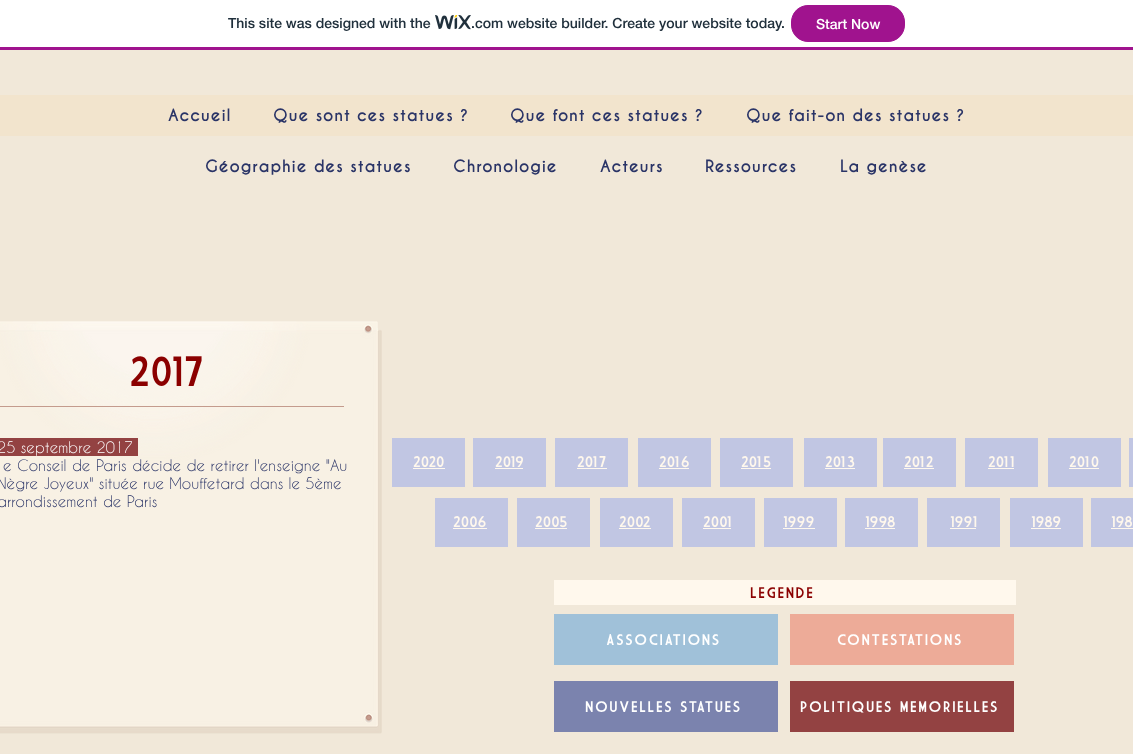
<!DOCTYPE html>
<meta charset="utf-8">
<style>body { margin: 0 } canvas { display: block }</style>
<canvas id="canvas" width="1133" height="754"></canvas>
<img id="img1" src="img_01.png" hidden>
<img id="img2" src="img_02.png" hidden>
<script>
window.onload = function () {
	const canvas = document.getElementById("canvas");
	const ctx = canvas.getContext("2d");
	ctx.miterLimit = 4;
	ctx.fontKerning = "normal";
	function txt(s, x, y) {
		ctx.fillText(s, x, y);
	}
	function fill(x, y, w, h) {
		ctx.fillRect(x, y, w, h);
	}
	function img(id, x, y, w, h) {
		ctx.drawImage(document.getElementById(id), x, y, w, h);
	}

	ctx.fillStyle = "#FFFFFF";
	fill(0, 0, 1133, 754);
	ctx.fillStyle = "#A0138E";
	fill(0, 47, 1133, 3);
	img("img1", 435, 15, 36, 15);
	ctx.beginPath();
	ctx.roundRect(791.5, 5.5, 113, 36, 16.5);
	ctx.fill();
	ctx.strokeStyle = "#A0138E";
	ctx.stroke();
	ctx.fillStyle = "#F1E8D9";
	fill(0, 50, 1133, 704);
	ctx.fillStyle = "#F2E4CD";
	fill(0, 95, 1133, 41);
	img("img2", 0, 321, 382, 413);
	ctx.fillStyle = "#C49B8D";
	fill(0, 406, 344, 1);
	ctx.fillStyle = "#934242";
	fill(0, 438, 138, 18);
	ctx.fillStyle = "#C1C6E3";
	fill(392, 438, 73, 49);
	ctx.fillStyle = "#FFF8ED";
	fill(413, 468, 32, 1);
	ctx.fillStyle = "#C1C6E3";
	fill(473, 438, 73, 49);
	ctx.fillStyle = "#FFF8ED";
	fill(495, 468, 28, 1);
	ctx.fillStyle = "#C1C6E3";
	fill(555, 438, 73, 49);
	ctx.fillStyle = "#FFF8ED";
	fill(577, 468, 30, 1);
	ctx.fillStyle = "#C1C6E3";
	fill(638, 438, 73, 49);
	ctx.fillStyle = "#FFF8ED";
	fill(659, 468, 30, 1);
	ctx.fillStyle = "#C1C6E3";
	fill(720, 438, 73, 49);
	ctx.fillStyle = "#FFF8ED";
	fill(741, 468, 30, 1);
	ctx.fillStyle = "#C1C6E3";
	fill(804, 438, 73, 49);
	ctx.fillStyle = "#FFF8ED";
	fill(825, 468, 30, 1);
	ctx.fillStyle = "#C1C6E3";
	fill(883, 438, 73, 49);
	ctx.fillStyle = "#FFF8ED";
	fill(904, 468, 30, 1);
	ctx.fillStyle = "#C1C6E3";
	fill(965, 438, 73, 49);
	ctx.fillStyle = "#FFF8ED";
	fill(988, 468, 26, 1);
	ctx.fillStyle = "#C1C6E3";
	fill(1048, 438, 73, 49);
	ctx.fillStyle = "#FFF8ED";
	fill(1069, 468, 30, 1);
	ctx.fillStyle = "#C1C6E3";
	fill(1129, 438, 4, 49);
	fill(435, 498, 73, 49);
	ctx.fillStyle = "#FFF8ED";
	fill(453, 528, 34, 1);
	ctx.fillStyle = "#C1C6E3";
	fill(517, 498, 73, 49);
	ctx.fillStyle = "#FFF8ED";
	fill(535, 528, 32, 1);
	ctx.fillStyle = "#C1C6E3";
	fill(600, 498, 73, 49);
	ctx.fillStyle = "#FFF8ED";
	fill(619, 528, 32, 1);
	ctx.fillStyle = "#C1C6E3";
	fill(682, 498, 73, 49);
	ctx.fillStyle = "#FFF8ED";
	fill(703, 528, 28, 1);
	ctx.fillStyle = "#C1C6E3";
	fill(764, 498, 73, 49);
	ctx.fillStyle = "#FFF8ED";
	fill(783, 528, 32, 1);
	ctx.fillStyle = "#C1C6E3";
	fill(845, 498, 73, 49);
	ctx.fillStyle = "#FFF8ED";
	fill(865, 528, 30, 1);
	ctx.fillStyle = "#C1C6E3";
	fill(927, 498, 73, 49);
	ctx.fillStyle = "#FFF8ED";
	fill(950, 528, 26, 1);
	ctx.fillStyle = "#C1C6E3";
	fill(1010, 498, 73, 49);
	ctx.fillStyle = "#FFF8ED";
	fill(1031, 528, 30, 1);
	ctx.fillStyle = "#C1C6E3";
	fill(1091, 498, 42, 49);
	ctx.fillStyle = "#FFF8ED";
	fill(1111, 528, 22, 1);
	fill(554, 580, 462, 25);
	ctx.fillStyle = "#A0C1D9";
	fill(554, 614, 224, 51);
	ctx.fillStyle = "#EDAB98";
	fill(790, 614, 224, 51);
	ctx.fillStyle = "#7B83AE";
	fill(554, 681, 224, 51);
	ctx.fillStyle = "#934242";
	fill(790, 681, 224, 51);
	ctx.font = "500 14px 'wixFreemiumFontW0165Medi'";
	ctx.fillStyle = "#20303C";
	txt("This site was designed with the", 228, 28);
	txt(".com website builder. Create your website today.", 471, 28);
	ctx.fillStyle = "#FFFFFF";
	txt("Start Now", 816, 29);
	ctx.letterSpacing = "0.8px";
	ctx.font = "bold 16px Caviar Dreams";
	ctx.fillStyle = "#2A3467";
	txt("Accueil", 168, 121);
	txt("Que sont ces statues ?", 273, 121);
	txt("Que font ces statues ?", 510, 121);
	txt("Que fait-on des statues ?", 746, 121);
	txt("Géographie des statues", 205, 172);
	txt("Chronologie", 453, 172);
	txt("Acteurs", 600, 172);
	txt("Ressources", 705, 172);
	txt("La genèse", 840, 172);
	ctx.letterSpacing = "0px";
	ctx.font = "41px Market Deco";
	ctx.fillStyle = "#8B0000";
	txt("2017", 129, 386);
	ctx.font = "15px Caviar Dreams";
	ctx.fillStyle = "#FFFFFF";
	txt("25 septembre 2017", -3, 453);
	ctx.wordSpacing = "0.25px";
	ctx.fillStyle = "#2A3467";
	txt("e Conseil de Paris décide de retirer l'enseigne \"Au", 3, 471);
	ctx.wordSpacing = "0px";
	txt("Nègre Joyeux\" située rue Mouffetard dans le 5ème", -3, 489);
	txt("arrondissement de Paris", -3, 507);
	ctx.font = "15px Market Deco";
	ctx.fillStyle = "#FFF8ED";
	txt("2020", 413, 467);
	txt("2019", 495, 467);
	txt("201è7", 577, 467);
	txt("201è6", 659, 467);
	txt("201è5", 741, 467);
	txt("201è3", 825, 467);
	txt("201è2", 904, 467);
	txt("201è1", 988, 467);
	txt("201è0", 1069, 467);
	txt("2006", 453, 527);
	txt("2005", 535, 527);
	txt("2002", 619, 527);
	txt("2001", 703, 527);
	txt("1999", 783, 527);
	txt("1998", 865, 527);
	txt("1991", 950, 527);
	txt("1989", 1031, 527);
	txt("198", 1111, 527);
	ctx.letterSpacing = "1.5px";
	ctx.fillStyle = "#8B0000";
	txt("LEGENDE", 750, 598);
	ctx.fillStyle = "#FFFFFF";
	txt("ASSOCIATIONS", 606, 645);
	txt("CONTESTATIONS", 837, 645);
	txt("NOUVELLES STATUES", 585, 712);
	txt("POLITIQUES MEMORIELLES", 800, 712);
};
</script>
